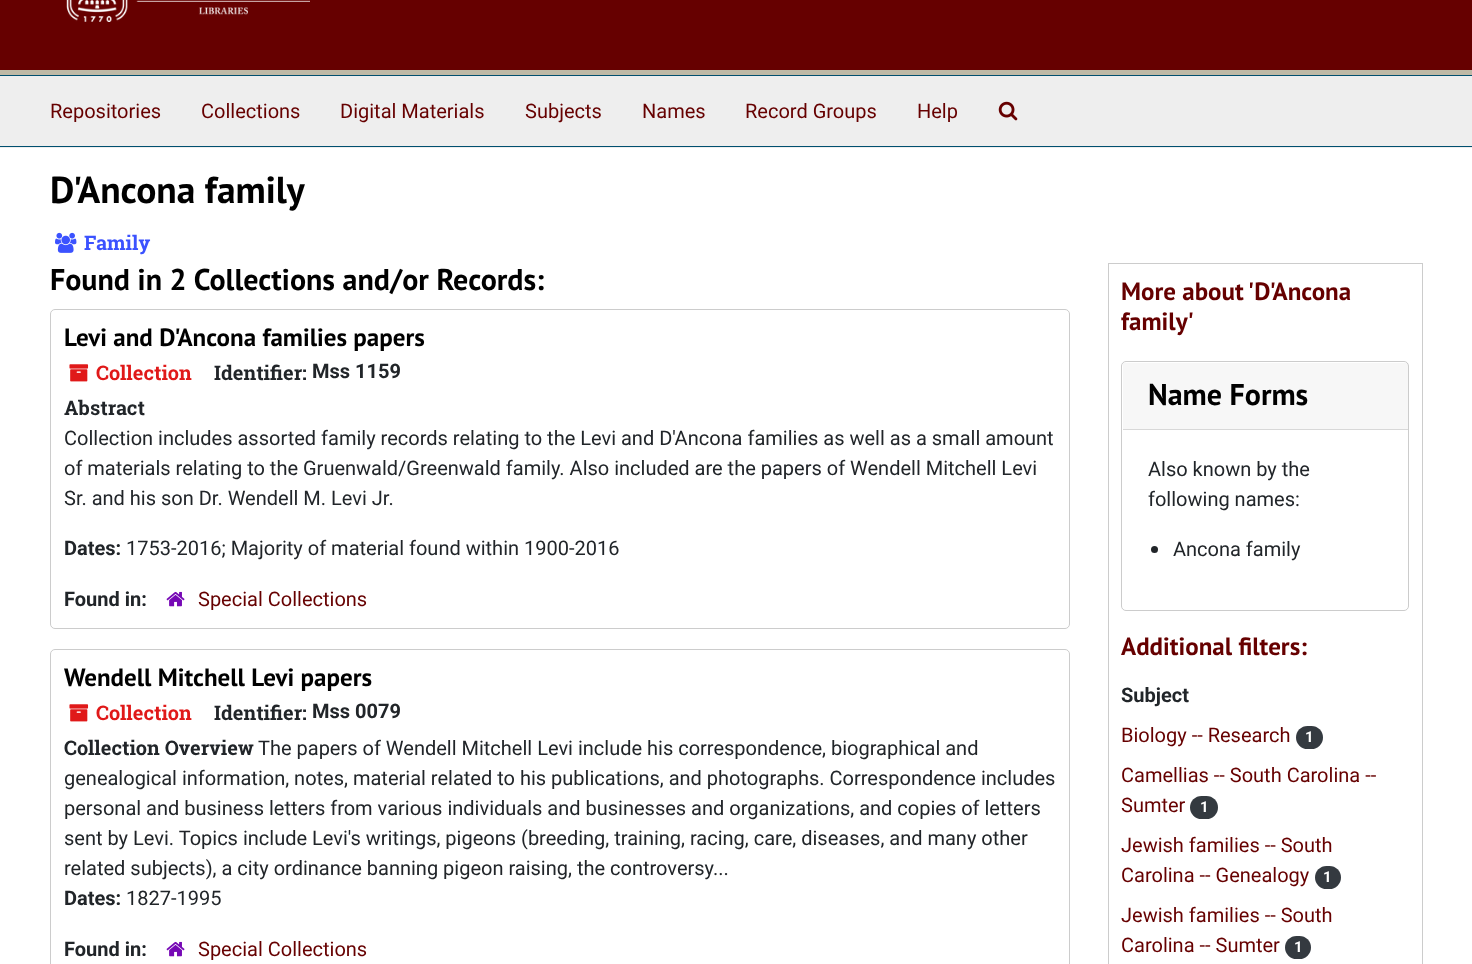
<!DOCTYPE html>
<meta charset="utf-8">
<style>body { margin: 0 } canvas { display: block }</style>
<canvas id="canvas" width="1472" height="964"></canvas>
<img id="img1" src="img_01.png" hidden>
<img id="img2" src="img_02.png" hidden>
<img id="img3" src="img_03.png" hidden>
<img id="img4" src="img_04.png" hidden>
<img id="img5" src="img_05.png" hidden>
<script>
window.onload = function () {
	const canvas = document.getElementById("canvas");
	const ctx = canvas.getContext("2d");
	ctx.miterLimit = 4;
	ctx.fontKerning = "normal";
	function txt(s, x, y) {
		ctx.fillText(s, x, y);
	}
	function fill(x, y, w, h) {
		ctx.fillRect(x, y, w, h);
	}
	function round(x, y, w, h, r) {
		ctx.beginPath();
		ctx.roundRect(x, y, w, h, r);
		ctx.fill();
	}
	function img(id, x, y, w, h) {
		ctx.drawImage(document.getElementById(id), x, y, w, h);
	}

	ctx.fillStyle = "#FFFFFF";
	fill(0, 0, 1472, 964);
	ctx.fillStyle = "#660000";
	fill(0, 0, 1472, 70);
	ctx.fillStyle = "#BEB9A6";
	fill(0, 70, 1472, 5);
	img("img1", 66, 0, 244, 22);
	ctx.fillStyle = "#EEEEEE";
	fill(0, 76, 1472, 72);
	ctx.fillStyle = "#004F6F";
	fill(0, 75, 1472, 1);
	fill(0, 146, 1472, 1);
	img("img2", 998, 101, 20, 20);
	img("img3", 55, 232, 22, 21);
	ctx.beginPath();
	ctx.roundRect(50.5, 309.5, 1019, 319, 4.5);
	ctx.strokeStyle = "#CCCCCC";
	ctx.stroke();
	img("img4", 69, 364, 20, 18);
	img("img5", 166, 591, 19, 16);
	ctx.beginPath();
	ctx.roundRect(50.5, 649.5, 1019, 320, 4.5);
	ctx.stroke();
	img("img4", 69, 704, 20, 18);
	img("img5", 166, 941, 19, 16);
	ctx.strokeRect(1108.5, 263.5, 314, 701);
	ctx.beginPath();
	ctx.roundRect(1121.5, 361.5, 287, 249, 4.5);
	ctx.stroke();
	ctx.fillStyle = "rgba(0, 0, 0, 0.03)";
	fill(1123, 363, 285, 66);
	ctx.fillStyle = "#D8D8D8";
	fill(1123, 429, 285, 1);
	ctx.fillStyle = "#212529";
	ctx.beginPath();
	ctx.arc(1154.5, 549.5, 3.5, 0, Math.PI * 2);
	ctx.fill();
	ctx.fillStyle = "#343A40";
	round(1296, 726, 27, 23, 11.5);
	round(1190, 796, 28, 23, 11.5);
	round(1315, 866, 26, 23, 11.5);
	round(1285, 936, 26, 23, 11.5);
	ctx.font = "20px Roboto";
	ctx.fillStyle = "#660000";
	txt("Repositories", 50, 118);
	txt("Collections", 201, 118);
	txt("Digital Materials", 340, 118);
	txt("Subjects", 525, 118);
	txt("Names", 642, 118);
	txt("Record Groups", 745, 118);
	txt("Help", 917, 118);
	ctx.font = "bold 37.5px PT Sans";
	ctx.fillStyle = "#000000";
	txt("D'Ancona family", 50, 203);
	ctx.font = "bold 20px Roboto Slab";
	ctx.fillStyle = "#3B52FF";
	txt("Family", 84, 250);
	ctx.font = "bold 30px PT Sans";
	ctx.fillStyle = "#000000";
	txt("Found in 2 Collections and/or Records:", 50, 290);
	ctx.font = "bold 25px PT Sans";
	txt("Levi and D'Ancona families papers", 64, 346);
	ctx.font = "bold 20px Roboto Slab";
	ctx.fillStyle = "#E01919";
	txt("Collection", 96, 380);
	ctx.fillStyle = "#212529";
	txt("Identifier:", 214, 380);
	ctx.font = "bold 20px Roboto";
	txt("Mss 1159", 312, 378);
	ctx.font = "bold 20px Roboto Slab";
	txt("Abstract", 64, 415);
	ctx.font = "20px Roboto";
	txt("Collection includes assorted family records relating to the Levi and D'Ancona families as well as a small amount", 64, 445);
	txt("of materials relating to the Gruenwald/Greenwald family. Also included are the papers of Wendell Mitchell Levi", 64, 475);
	txt("Sr. and his son Dr. Wendell M. Levi Jr.", 64, 505);
	ctx.font = "bold 20px Roboto";
	txt("Dates:", 64, 555);
	ctx.font = "20px Roboto";
	txt("1753-2016; Majority of material found within 1900-2016", 126, 555);
	ctx.font = "bold 20px Roboto";
	txt("Found in:", 64, 606);
	ctx.font = "20px Roboto";
	ctx.fillStyle = "#660000";
	txt("Special Collections", 198, 606);
	ctx.font = "bold 25px PT Sans";
	ctx.fillStyle = "#000000";
	txt("Wendell Mitchell Levi papers", 64, 686);
	ctx.font = "bold 20px Roboto Slab";
	ctx.fillStyle = "#E01919";
	txt("Collection", 96, 720);
	ctx.fillStyle = "#212529";
	txt("Identifier:", 214, 720);
	ctx.font = "bold 20px Roboto";
	txt("Mss 0079", 312, 718);
	ctx.font = "bold 20px Roboto Slab";
	txt("Collection Overview", 64, 755);
	ctx.font = "20px Roboto";
	txt("The papers of Wendell Mitchell Levi include his correspondence, biographical and", 258, 755);
	txt("genealogical information, notes, material related to his publications, and photographs. Correspondence includes", 64, 785);
	txt("personal and business letters from various individuals and businesses and organizations, and copies of letters", 64, 815);
	txt("sent by Levi. Topics include Levi's writings, pigeons (breeding, training, racing, care, diseases, and many other", 64, 845);
	txt("related subjects), a city ordinance banning pigeon raising, the controversy...", 64, 875);
	ctx.font = "bold 20px Roboto";
	txt("Dates:", 64, 905);
	ctx.font = "20px Roboto";
	txt("1827-1995", 126, 905);
	ctx.font = "bold 20px Roboto";
	txt("Found in:", 64, 956);
	ctx.font = "20px Roboto";
	ctx.fillStyle = "#660000";
	txt("Special Collections", 198, 956);
	ctx.font = "bold 25px PT Sans";
	txt("More about 'D'Ancona", 1121, 300);
	txt("family'", 1121, 330);
	ctx.font = "bold 30px PT Sans";
	ctx.fillStyle = "#000000";
	txt("Name Forms", 1148, 405);
	ctx.font = "20px Roboto";
	ctx.fillStyle = "#212529";
	txt("Also known by the", 1148, 476);
	txt("following names:", 1148, 506);
	txt("Ancona family", 1173, 556);
	ctx.font = "bold 25px PT Sans";
	ctx.fillStyle = "#660000";
	txt("Additional filters:", 1121, 655);
	ctx.font = "bold 20px Roboto";
	ctx.fillStyle = "#212529";
	txt("Subject", 1121, 702);
	ctx.font = "20px Roboto";
	ctx.fillStyle = "#660000";
	txt("Biology -- Research", 1121, 742);
	ctx.font = "bold 15px Roboto";
	ctx.fillStyle = "#FFFFFF";
	txt("1", 1305, 742);
	ctx.font = "20px Roboto";
	ctx.fillStyle = "#660000";
	txt("Camellias -- South Carolina --", 1121, 782);
	txt("Sumter", 1121, 812);
	ctx.font = "bold 15px Roboto";
	ctx.fillStyle = "#FFFFFF";
	txt("1", 1200, 812);
	ctx.font = "20px Roboto";
	ctx.fillStyle = "#660000";
	txt("Jewish families -- South", 1121, 852);
	txt("Carolina -- Genealogy", 1121, 882);
	ctx.font = "bold 15px Roboto";
	ctx.fillStyle = "#FFFFFF";
	txt("1", 1323, 882);
	ctx.font = "20px Roboto";
	ctx.fillStyle = "#660000";
	txt("Jewish families -- South", 1121, 922);
	txt("Carolina -- Sumter", 1121, 952);
	ctx.font = "bold 15px Roboto";
	ctx.fillStyle = "#FFFFFF";
	txt("1", 1294, 952);
};
</script>
